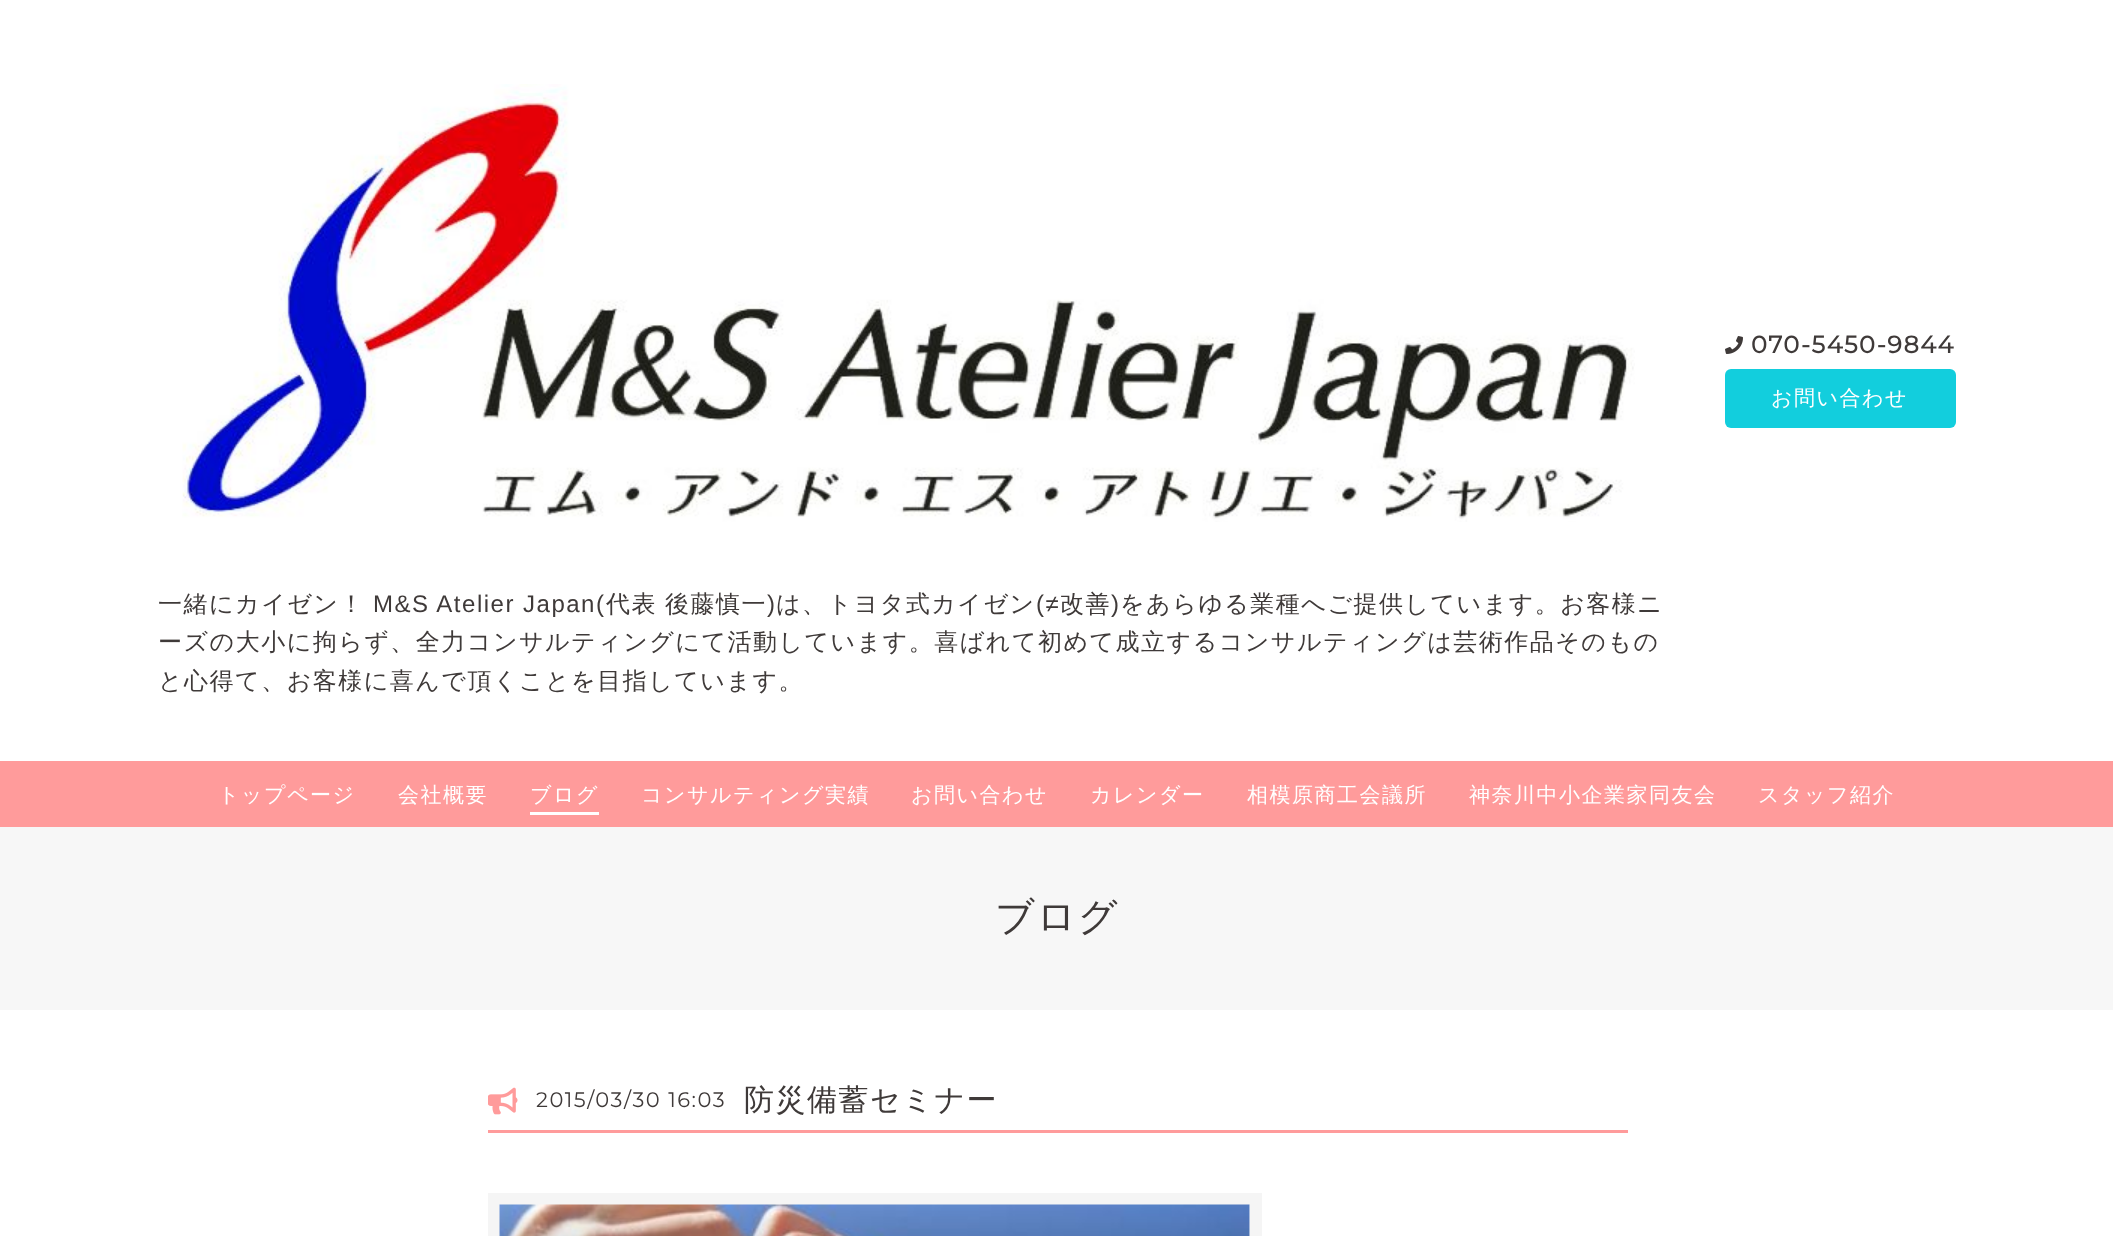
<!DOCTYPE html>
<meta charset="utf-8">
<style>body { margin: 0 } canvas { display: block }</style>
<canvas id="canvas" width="2113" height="1236"></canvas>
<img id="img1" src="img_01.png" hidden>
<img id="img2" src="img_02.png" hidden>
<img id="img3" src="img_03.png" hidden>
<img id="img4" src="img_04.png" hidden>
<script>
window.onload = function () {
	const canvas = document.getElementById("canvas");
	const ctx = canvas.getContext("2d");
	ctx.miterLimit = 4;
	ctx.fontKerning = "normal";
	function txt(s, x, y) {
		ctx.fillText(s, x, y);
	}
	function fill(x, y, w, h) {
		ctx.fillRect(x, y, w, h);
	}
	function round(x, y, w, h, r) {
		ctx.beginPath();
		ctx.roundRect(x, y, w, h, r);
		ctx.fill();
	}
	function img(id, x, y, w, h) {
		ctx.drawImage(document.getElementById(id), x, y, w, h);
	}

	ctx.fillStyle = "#FFFFFF";
	fill(0, 0, 2113, 1236);
	img("img1", 1725, 336, 18, 18);
	ctx.fillStyle = "#12CEDD";
	round(1725, 369, 231, 59, 6);
	img("img2", 182, 84, 1453, 438);
	ctx.fillStyle = "#FF9B9B";
	fill(0, 761, 2113, 66);
	ctx.fillStyle = "#FFFFFF";
	fill(530, 812, 69, 3);
	ctx.fillStyle = "#F7F7F7";
	fill(0, 827, 2113, 183);
	ctx.fillStyle = "#FF9B9B";
	fill(488, 1130, 1140, 3);
	img("img3", 488, 1087, 30, 28);
	ctx.strokeStyle = "#F5F5F5";
	ctx.lineWidth = 12;
	ctx.strokeRect(494, 1199, 762, 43);
	img("img4", 499, 1204, 751, 32);
	ctx.letterSpacing = "1.5px";
	ctx.font = "bold 24px Montserrat";
	ctx.fillStyle = "#3F3A39";
	txt("070-5450-9844", 1751, 353);
	ctx.font = "500 21px WenQuanYi Zen Hei";
	ctx.fillStyle = "#FFFFFF";
	txt("お問い合わせ", 1771, 405);
	ctx.font = "500 24px WenQuanYi Zen Hei";
	ctx.fillStyle = "#3F3A39";
	txt("一緒にカイゼン！", 158, 612);
	ctx.font = "24px Liberation Sans";
	txt("M&S Atelier Japan(", 373, 612);
	ctx.font = "500 24px WenQuanYi Zen Hei";
	txt("代表", 606, 612);
	txt("後藤慎一", 665, 612);
	ctx.font = "24px Liberation Sans";
	txt(")", 767, 612);
	ctx.font = "500 24px WenQuanYi Zen Hei";
	txt("は、トヨタ式カイゼン", 776, 612);
	ctx.font = "24px Liberation Sans";
	txt("(≠", 1036, 612);
	ctx.font = "500 24px WenQuanYi Zen Hei";
	txt("改善", 1060, 612);
	ctx.font = "24px Liberation Sans";
	txt(")", 1111, 612);
	ctx.font = "500 24px WenQuanYi Zen Hei";
	txt("をあらゆる業種へご提供しています。お客様ニ", 1120, 612);
	txt("ーズの大小に拘らず、全力コンサルティングにて活動しています。喜ばれて初めて成立するコンサルティングは芸術作品そのもの", 158, 650);
	txt("と心得て、お客様に喜んで頂くことを目指しています。", 158, 689);
	ctx.font = "500 21px WenQuanYi Zen Hei";
	ctx.fillStyle = "#FFFFFF";
	txt("トップページ", 218, 802);
	txt("会社概要", 398, 802);
	txt("ブログ", 530, 802);
	txt("コンサルティング実績", 641, 802);
	txt("お問い合わせ", 911, 802);
	txt("カレンダー", 1090, 802);
	txt("相模原商工会議所", 1247, 802);
	txt("神奈川中小企業家同友会", 1469, 802);
	txt("スタッフ紹介", 1758, 802);
	ctx.font = "500 39px WenQuanYi Zen Hei";
	ctx.fillStyle = "#3F3A39";
	txt("ブログ", 995, 930);
	ctx.font = "100 21px Montserrat";
	txt("2015/03/30 16:03", 536, 1107);
	ctx.font = "500 30px WenQuanYi Zen Hei";
	txt("防災備蓄セミナー", 744, 1110);
};
</script>
